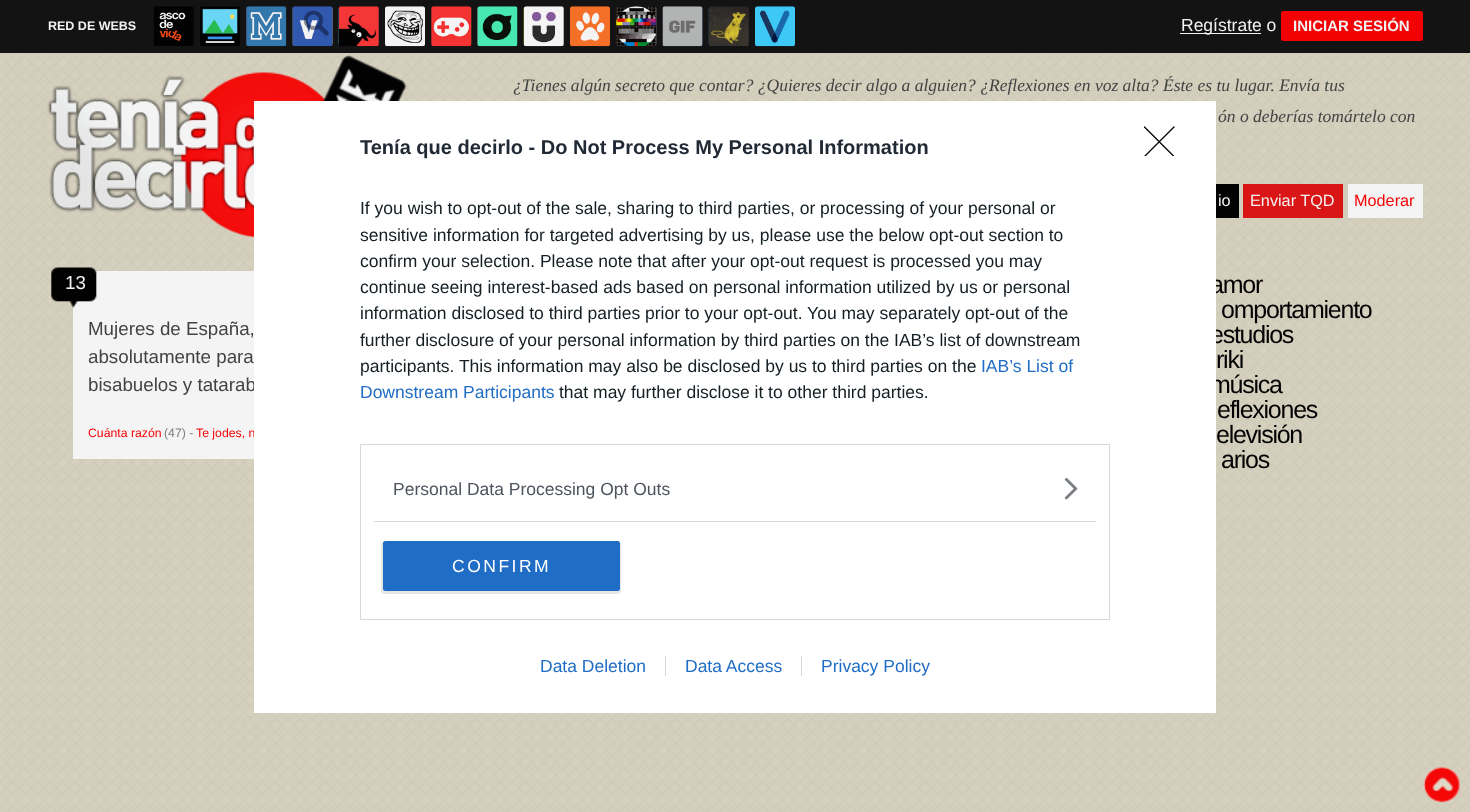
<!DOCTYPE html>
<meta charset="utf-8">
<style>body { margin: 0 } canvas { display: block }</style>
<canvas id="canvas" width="1470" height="812"></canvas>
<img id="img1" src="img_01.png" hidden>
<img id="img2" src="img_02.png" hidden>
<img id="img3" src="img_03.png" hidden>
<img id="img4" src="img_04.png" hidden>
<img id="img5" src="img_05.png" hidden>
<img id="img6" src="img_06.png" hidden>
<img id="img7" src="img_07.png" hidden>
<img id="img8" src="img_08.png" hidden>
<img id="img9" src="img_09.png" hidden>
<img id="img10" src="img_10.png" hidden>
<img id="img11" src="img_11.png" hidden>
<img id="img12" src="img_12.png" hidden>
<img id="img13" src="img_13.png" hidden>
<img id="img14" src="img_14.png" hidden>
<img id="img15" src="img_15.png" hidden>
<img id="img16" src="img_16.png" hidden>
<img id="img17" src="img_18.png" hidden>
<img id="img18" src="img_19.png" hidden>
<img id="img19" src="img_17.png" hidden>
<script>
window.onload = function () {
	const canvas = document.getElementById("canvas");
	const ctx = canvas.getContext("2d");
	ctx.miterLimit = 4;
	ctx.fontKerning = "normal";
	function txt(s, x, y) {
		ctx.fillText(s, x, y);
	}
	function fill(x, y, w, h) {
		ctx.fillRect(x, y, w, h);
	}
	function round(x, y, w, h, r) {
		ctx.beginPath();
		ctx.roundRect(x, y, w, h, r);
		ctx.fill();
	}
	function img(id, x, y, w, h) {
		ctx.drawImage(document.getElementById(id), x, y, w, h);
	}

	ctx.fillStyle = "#FFFFFF";
	fill(0, 0, 1470, 812);
	img("img1", 0, 53, 1470, 759);
	ctx.fillStyle = "#131314";
	fill(0, 0, 1470, 53);
	img("img2", 153, 6, 41, 40);
	img("img3", 200, 6, 40, 40);
	img("img4", 246, 6, 41, 41);
	img("img5", 292, 6, 41, 41);
	img("img6", 338, 6, 41, 41);
	img("img7", 385, 6, 40, 41);
	img("img8", 431, 6, 41, 41);
	img("img9", 477, 6, 41, 41);
	img("img10", 523, 6, 41, 41);
	img("img11", 570, 6, 40, 41);
	img("img12", 616, 6, 41, 41);
	img("img13", 662, 6, 41, 41);
	img("img14", 708, 6, 41, 40);
	img("img15", 755, 6, 40, 41);
	ctx.fillStyle = "#F3F3F4";
	fill(1180, 33, 81, 1);
	ctx.fillStyle = "#F40203";
	round(1281, 11, 142, 30, 2.5);
	img("img16", 47, 55, 360, 183);
	ctx.fillStyle = "#020203";
	fill(1216, 184, 23, 34);
	ctx.fillStyle = "#D91516";
	fill(1243, 184, 100, 34);
	ctx.fillStyle = "#F4F4F5";
	fill(1348, 184, 75, 34);
	fill(73, 271, 181, 188);
	img("img17", 51, 267, 46, 41);
	img("img18", 1423, 767, 37, 36);
	ctx.font = "bold 12.5px Liberation Sans";
	ctx.fillStyle = "#F3F3F4";
	txt("RED DE WEBS", 48, 30);
	ctx.font = "17.5px Liberation Sans";
	txt("Regístrate o", 1181, 31);
	ctx.font = "bold 15px Liberation Sans";
	txt("INICIAR SESIÓN", 1293, 31);
	ctx.font = "italic 17.5px Liberation Serif";
	ctx.fillStyle = "#424343";
	txt("¿Tienes algún secreto que contar? ¿Quieres decir algo a alguien? ¿Reflexiones en voz alta? Éste es tu lugar. Envía tus", 513, 91);
	txt("ón o deberías tomártelo con", 1218, 122);
	ctx.font = "16.25px Liberation Sans";
	ctx.fillStyle = "#F3F3F4";
	txt("io", 1218, 206);
	txt("Enviar TQD", 1250, 206);
	ctx.fillStyle = "#F40203";
	txt("Moderar", 1354, 206);
	ctx.font = "18.75px Liberation Sans";
	ctx.fillStyle = "#F3F3F4";
	txt("13", 65, 289);
	ctx.fillStyle = "#424343";
	txt("Mujeres de España,", 88, 335);
	txt("absolutamente para", 88, 363);
	txt("bisabuelos y tatarab", 88, 391);
	ctx.font = "12.25px Liberation Sans";
	ctx.fillStyle = "#F40203";
	txt("Cuánta razón", 88, 437);
	ctx.fillStyle = "#7B7C7C";
	txt("(47) -", 164, 437);
	ctx.fillStyle = "#F40203";
	txt("Te jodes, n", 196, 437);
	ctx.letterSpacing = "-1.25px";
	ctx.font = "25px Liberation Sans";
	ctx.fillStyle = "#020203";
	txt("amor", 1210, 293);
	txt("omportamiento", 1221, 318);
	txt("estudios", 1210, 343);
	txt("riki", 1216, 368);
	txt("música", 1210, 393);
	ctx.fillStyle = "#FFFFFF";
	fill(254, 101, 962, 612);
	ctx.strokeStyle = "#D8D8D8";
	ctx.strokeRect(360.5, 444.5, 749, 175);
	img("img19", 1064, 477, 14, 23);
	ctx.save();
	ctx.beginPath();
	ctx.rect(1144, 126, 31, 30);
	ctx.clip();
	ctx.beginPath();
	ctx.moveTo(1144.5, 127);
	ctx.lineTo(1174, 156.5);
	ctx.moveTo(1174, 127);
	ctx.lineTo(1144.5, 156.5);
	ctx.strokeStyle = "#000000";
	ctx.lineWidth = 1.3;
	ctx.lineCap = "round";
	ctx.lineJoin = "round";
	ctx.stroke();
	ctx.restore();
	ctx.fillStyle = "rgba(0, 0, 0, 0.1)";
	ctx.filter = "blur(0.5px)";
	ctx.beginPath();
	ctx.roundRect(381, 541, 240, 53, 4);
	ctx.fill();
	ctx.filter = "none";
	ctx.fillStyle = "#206DC5";
	round(383, 541, 237, 50, 2.5);
	ctx.letterSpacing = "2.5px";
	ctx.font = "17.5px Liberation Sans";
	ctx.fillStyle = "#FFFFFF";
	txt("CONFIRM", 452, 572);
	ctx.letterSpacing = "0px";
	ctx.fillStyle = "#4D545D";
	txt("Personal Data Processing Opt Outs", 393, 495);
	ctx.fillStyle = "#D8D8D8";
	fill(374, 521, 722, 1);
	ctx.fillStyle = "#141E23";
	txt("that may further disclose it to other third parties.", 559, 398);
	ctx.fillStyle = "#206DC5";
	txt("Downstream Participants", 360, 398);
	txt("IAB’s List of", 981, 372);
	ctx.fillStyle = "#141E23";
	txt("participants. This information may also be disclosed by us to third parties on the", 360, 372);
	txt("further disclosure of your personal information by third parties on the IAB’s list of downstream", 360, 346);
	txt("information disclosed to third parties prior to your opt-out. You may separately opt-out of the", 360, 319);
	txt("continue seeing interest-based ads based on personal information utilized by us or personal", 360, 293);
	txt("confirm your selection. Please note that after your opt-out request is processed you may", 360, 267);
	txt("sensitive information for targeted advertising by us, please use the below opt-out section to", 360, 241);
	txt("If you wish to opt-out of the sale, sharing to third parties, or processing of your personal or", 360, 214);
	ctx.fillStyle = "#206DC5";
	txt("Privacy Policy", 821, 672);
	ctx.fillStyle = "#D8D8D8";
	fill(801, 656, 1, 20);
	ctx.fillStyle = "#206DC5";
	txt("Data Access", 685, 672);
	ctx.fillStyle = "#D8D8D8";
	fill(665, 656, 1, 20);
	ctx.fillStyle = "#206DC5";
	txt("Data Deletion", 540, 672);
	ctx.font = "bold 20px Liberation Sans";
	ctx.fillStyle = "#212934";
	txt("Tenía que decirlo - Do Not Process My Personal Information", 360, 154);
	ctx.letterSpacing = "-1.25px";
	ctx.font = "25px Liberation Sans";
	ctx.fillStyle = "#020203";
	txt("eflexiones", 1217, 418);
	txt("elevisión", 1216, 443);
	txt("arios", 1221, 468);
};
</script>
